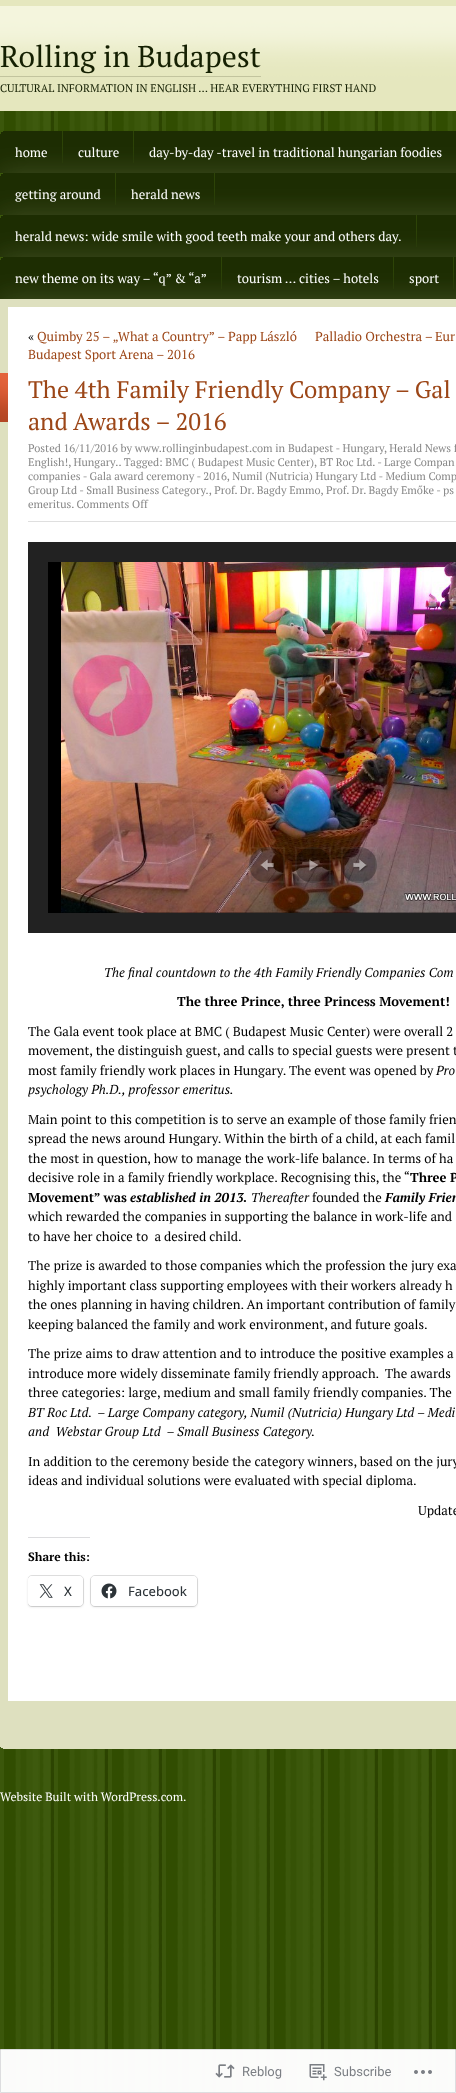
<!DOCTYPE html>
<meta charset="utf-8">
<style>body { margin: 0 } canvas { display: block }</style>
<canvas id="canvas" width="456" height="2093"></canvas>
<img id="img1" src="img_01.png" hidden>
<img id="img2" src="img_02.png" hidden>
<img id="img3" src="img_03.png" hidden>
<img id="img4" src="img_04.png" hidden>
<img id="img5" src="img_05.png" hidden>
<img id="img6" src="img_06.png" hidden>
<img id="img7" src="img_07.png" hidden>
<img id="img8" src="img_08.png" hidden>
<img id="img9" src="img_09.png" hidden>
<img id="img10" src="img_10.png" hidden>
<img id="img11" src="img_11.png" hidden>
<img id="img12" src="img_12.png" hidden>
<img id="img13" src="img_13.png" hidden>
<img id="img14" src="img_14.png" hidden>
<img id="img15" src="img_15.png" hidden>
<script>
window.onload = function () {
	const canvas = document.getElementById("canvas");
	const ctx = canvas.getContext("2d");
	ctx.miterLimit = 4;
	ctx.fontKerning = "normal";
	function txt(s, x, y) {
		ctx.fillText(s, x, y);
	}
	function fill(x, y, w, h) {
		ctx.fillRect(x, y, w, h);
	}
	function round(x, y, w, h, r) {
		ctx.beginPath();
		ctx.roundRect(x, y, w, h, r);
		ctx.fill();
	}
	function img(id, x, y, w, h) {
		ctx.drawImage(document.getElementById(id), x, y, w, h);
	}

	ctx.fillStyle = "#FFFFFF";
	fill(0, 0, 456, 2093);
	img("img1", 0, 111, 456, 1981);
	img("img2", 0, 0, 456, 111);
	ctx.fillStyle = "#C2C49E";
	fill(0, 76, 261, 1);
	img("img3", 0, 131, 456, 168);
	img("img4", 62, 131, 1, 32);
	img("img4", 133, 131, 1, 32);
	img("img4", 115, 173, 1, 32);
	img("img4", 214, 173, 1, 32);
	img("img4", 416, 215, 1, 32);
	img("img4", 221, 257, 1, 32);
	img("img4", 393, 257, 1, 32);
	img("img4", 453, 257, 1, 32);
	ctx.fillStyle = "#DEE0BF";
	fill(0, 299, 456, 1450);
	img("img5", 0, 1747, 3, 2);
	ctx.fillStyle = "#FFFFFF";
	fill(8, 307, 448, 1394);
	img("img6", 0, 373, 8, 49);
	ctx.fillStyle = "#DFDFDF";
	fill(28, 521, 428, 1);
	ctx.beginPath();
	ctx.rect(38, 552, 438, 371);
	ctx.strokeStyle = "#222222";
	ctx.lineWidth = 20;
	ctx.stroke();
	ctx.fillStyle = "#000000";
	fill(48, 562, 408, 351);
	img("img7", 61, 562, 395, 351);
	ctx.fillStyle = "rgba(0, 0, 0, 0.3)";
	ctx.beginPath();
	ctx.arc(267, 865, 18, 0, Math.PI * 2);
	ctx.fill();
	img("img8", 260, 859, 15, 13);
	ctx.strokeStyle = "rgba(255, 255, 255, 0.05)";
	ctx.lineWidth = 2;
	ctx.strokeRect(250, 848, 34, 34);
	ctx.beginPath();
	ctx.arc(313, 865, 18, 0, Math.PI * 2);
	ctx.fill();
	img("img9", 309, 859, 10, 13);
	ctx.strokeRect(296, 848, 34, 34);
	ctx.beginPath();
	ctx.arc(359, 865, 18, 0, Math.PI * 2);
	ctx.fill();
	img("img10", 353, 859, 15, 13);
	ctx.strokeRect(342, 848, 34, 34);
	ctx.fillStyle = "#DCDCDE";
	fill(28, 1537, 62, 1);
	ctx.save();
	ctx.beginPath();
	ctx.rect(28, 522, 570, 1159);
	ctx.clip();
	ctx.beginPath();
	ctx.roundRect(27.5, 1575.5, 56, 31, 4.5);
	ctx.strokeStyle = "#E0E0E0";
	ctx.lineWidth = 1;
	ctx.stroke();
	ctx.restore();
	ctx.fillStyle = "rgba(0, 0, 0, 0.12)";
	ctx.filter = "blur(1px)";
	ctx.beginPath();
	ctx.roundRect(28, 1577, 55, 30, 4);
	ctx.fill();
	ctx.filter = "none";
	ctx.fillStyle = "#FFFFFF";
	round(28, 1576, 55, 30, 4);
	img("img11", 39, 1584, 14, 14);
	ctx.beginPath();
	ctx.roundRect(90.5, 1575.5, 107, 31, 4.5);
	ctx.strokeStyle = "#E0E0E0";
	ctx.lineWidth = 1;
	ctx.stroke();
	ctx.fillStyle = "rgba(0, 0, 0, 0.12)";
	ctx.filter = "blur(1px)";
	ctx.beginPath();
	ctx.roundRect(91, 1577, 106, 30, 4);
	ctx.fill();
	ctx.filter = "none";
	ctx.fillStyle = "#FFFFFF";
	round(91, 1576, 106, 30, 4);
	img("img12", 101, 1583, 16, 16);
	ctx.fillStyle = "rgba(255, 255, 255, 0.98)";
	ctx.beginPath();
	ctx.rect(0.5, 2049.5, 455, 43);
	ctx.fill();
	ctx.strokeStyle = "#DDDDDF";
	ctx.stroke();
	img("img13", 215, 2064, 20, 14);
	img("img14", 309, 2064, 18, 17);
	img("img15", 414, 2070, 18, 4);
	ctx.font = "30px PT Serif";
	ctx.fillStyle = "#152002";
	txt("Rolling in Budapest", 0, 67);
	ctx.font = "11px PT Serif";
	txt("CULTURAL INFORMATION IN ENGLISH … HEAR EVERYTHING FIRST HAND", 0, 92);
	ctx.font = "13px PT Serif";
	ctx.fillStyle = "#FFFFFF";
	txt("home", 15, 157);
	txt("culture", 78, 157);
	txt("day-by-day -travel in traditional hungarian foodies", 149, 157);
	txt("getting around", 15, 199);
	txt("herald news", 131, 199);
	txt("herald news: wide smile with good teeth make your and others day.", 15, 241);
	txt("new theme on its way – “q” & “a”", 15, 283);
	txt("tourism … cities – hotels", 237, 283);
	txt("sport", 409, 283);
	ctx.fillStyle = "#000000";
	txt("«", 28, 341);
	ctx.fillStyle = "#9C4617";
	txt("Quimby 25 – „What a Country” – Papp László", 37, 341);
	txt("Budapest Sport Arena – 2016", 28, 359);
	txt("Palladio Orchestra –", 315, 341);
	txt("Eur", 435, 341);
	ctx.font = "24px PT Serif";
	txt("The 4th Family Friendly Company – Gal", 28, 398);
	txt("and Awards – 2016", 28, 430);
	ctx.font = "11px PT Serif";
	ctx.fillStyle = "#878787";
	txt("Posted 16/11/2016 by www.rollinginbudapest.com in", 28, 452);
	txt("Budapest - Hungary", 288, 452);
	txt(", Herald News f", 384, 452);
	txt("English!, Hungary.. Tagged: BMC ( Budapest Music Center), BT Roc Ltd. - Large Compan", 28, 466);
	txt("companies - Gala award ceremony - 2016, Numil (Nutricia) Hungary Ltd - Medium Comp", 28, 480);
	txt("Group Ltd - Small Business Category., Prof. Dr. Bagdy Emmo, Prof. Dr. Bagdy Emőke - ps", 28, 494);
	txt("emeritus. Comments Off", 28, 508);
	ctx.font = "italic 13px PT Serif";
	ctx.fillStyle = "#000000";
	txt("The final countdown to the 4th Family Friendly Companies Com", 104, 977);
	ctx.font = "bold 13px PT Serif";
	txt("The three Prince, three Princess Movement!", 177, 1006);
	ctx.font = "13px PT Serif";
	txt("The Gala event took place at BMC ( Budapest Music Center) were overall 2", 28, 1036);
	txt("movement, the distinguish guest, and calls to special guests were present t", 28, 1055);
	txt("most family friendly work places in Hungary. The event was opened by", 28, 1075);
	ctx.font = "italic 13px PT Serif";
	txt("Pro", 436, 1075);
	txt("psychology Ph.D., professor emeritus.", 28, 1094);
	ctx.font = "13px PT Serif";
	txt("Main point to this competition is to serve an example of those family frien", 28, 1124);
	txt("spread the news around Hungary. Within the birth of a child, at each famil", 28, 1143);
	txt("the most in question, how to manage the work-life balance. In terms of ha", 28, 1163);
	txt("decisive role in a family friendly workplace. Recognising this, the “", 28, 1182);
	ctx.font = "bold 13px PT Serif";
	txt("Three P", 410, 1182);
	txt("Movement” was", 28, 1202);
	ctx.font = "italic bold 13px PT Serif";
	txt("established in 2013.", 130, 1202);
	ctx.font = "italic 13px PT Serif";
	txt("Thereafter", 251, 1202);
	ctx.font = "13px PT Serif";
	txt("founded the", 312, 1202);
	ctx.font = "italic bold 13px PT Serif";
	txt("Family Frien", 385, 1202);
	ctx.font = "13px PT Serif";
	txt("which rewarded the companies in supporting the balance in work-life and", 28, 1221);
	txt("to have her choice to  a desired child.", 28, 1241);
	txt("The prize is awarded to those companies which the profession the jury exa", 28, 1270);
	txt("highly important class supporting employees with their workers already h", 28, 1290);
	txt("the ones planning in having children. An important contribution of family", 28, 1309);
	txt("keeping balanced the family and work environment, and future goals.", 28, 1329);
	txt("The prize aims to draw attention and to introduce the positive examples a", 28, 1358);
	txt("introduce more widely disseminate family friendly approach.  The awards", 28, 1378);
	txt("three categories: large, medium and small family friendly companies. The", 28, 1397);
	ctx.font = "italic 13px PT Serif";
	txt("BT Roc Ltd.  – Large Company category, Numil (Nutricia) Hungary Ltd – Medi", 28, 1417);
	txt("and  Webstar Group Ltd  – Small Business Category.", 28, 1436);
	ctx.font = "13px PT Serif";
	txt("In addition to the ceremony beside the category winners, based on the jury", 28, 1466);
	txt("ideas and individual solutions were evaluated with special diploma.", 28, 1485);
	txt("Update", 418, 1515);
	ctx.font = "bold 12px PT Serif";
	txt("Share this:", 28, 1561);
	ctx.font = "500 13px Open Sans";
	ctx.fillStyle = "#2C3338";
	txt("X", 64, 1596);
	txt("Facebook", 128, 1596);
	ctx.font = "12px PT Serif";
	ctx.fillStyle = "#FFFFFF";
	txt("Website Built with WordPress.com.", 0, 1801);
	ctx.font = "13px Roboto";
	ctx.fillStyle = "#7B7F84";
	txt("Reblog", 242, 2076);
	txt("Subscribe", 334, 2076);
};
</script>
